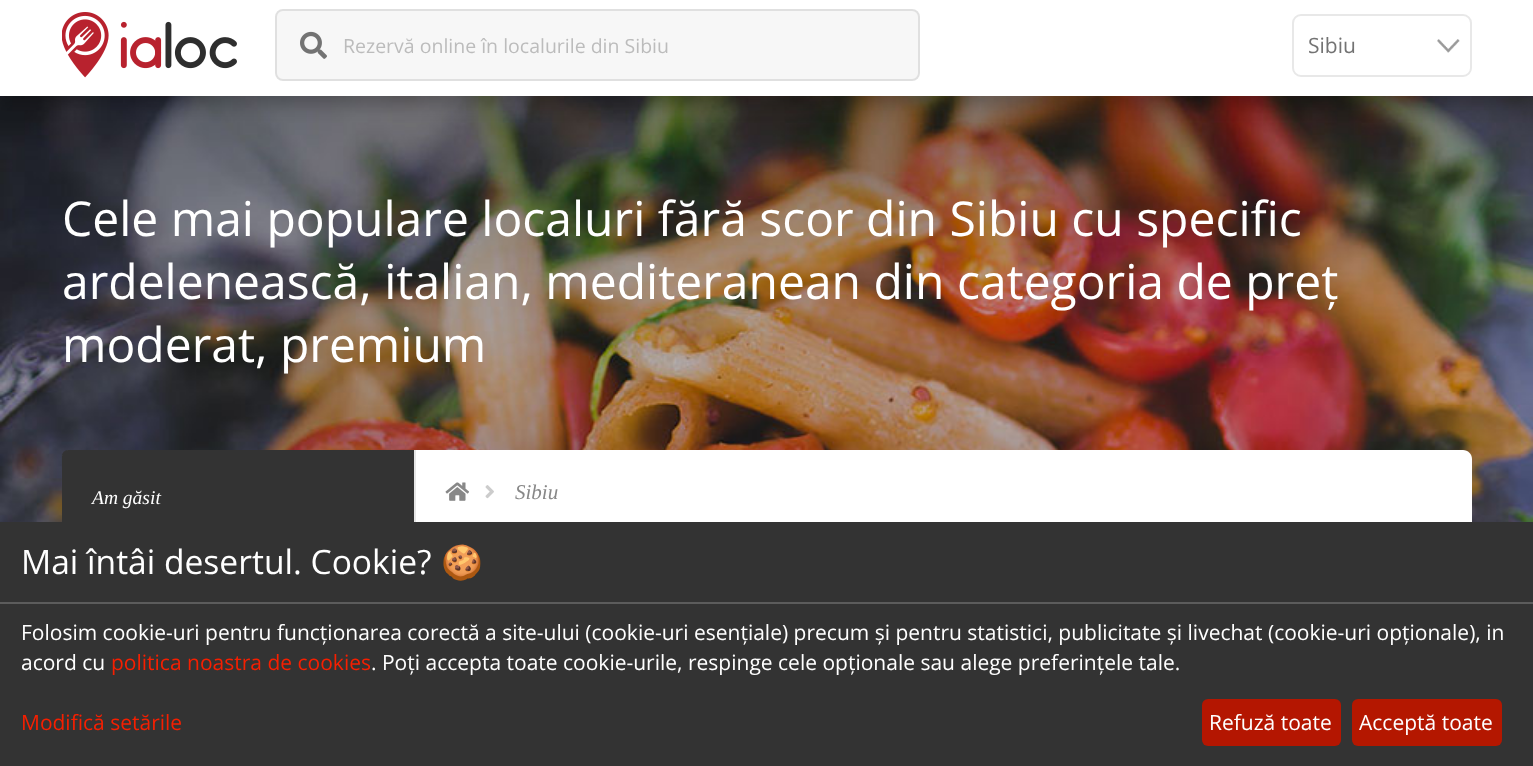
<!DOCTYPE html>
<meta charset="utf-8">
<style>body { margin: 0 } canvas { display: block }</style>
<canvas id="canvas" width="1533" height="766"></canvas>
<img id="img1" src="img_04.png" hidden>
<img id="img2" src="img_01.png" hidden>
<img id="img3" src="img_02.png" hidden>
<img id="img4" src="img_03.png" hidden>
<img id="img5" src="img_05.png" hidden>
<img id="img6" src="img_06.png" hidden>
<script>
window.onload = function () {
	const canvas = document.getElementById("canvas");
	const ctx = canvas.getContext("2d");
	ctx.miterLimit = 4;
	ctx.fontKerning = "normal";
	function txt(s, x, y) {
		ctx.fillText(s, x, y);
	}
	function fill(x, y, w, h) {
		ctx.fillRect(x, y, w, h);
	}
	function round(x, y, w, h, r) {
		ctx.beginPath();
		ctx.roundRect(x, y, w, h, r);
		ctx.fill();
	}
	function img(id, x, y, w, h) {
		ctx.drawImage(document.getElementById(id), x, y, w, h);
	}

	ctx.fillStyle = "#FFFFFF";
	fill(0, 0, 1533, 766);
	img("img1", 0, 96, 1533, 426);
	ctx.fillStyle = "rgba(0, 0, 0, 0.2)";
	ctx.filter = "blur(7.5px)";
	ctx.beginPath();
	ctx.rect(-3, 9, 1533, 96);
	ctx.fill();
	ctx.filter = "none";
	ctx.fillStyle = "#FFFFFF";
	fill(0, 0, 1533, 96);
	img("img2", 62, 12, 175, 66);
	ctx.fillStyle = "#F7F7F7";
	round(275, 9, 645, 72, 8);
	ctx.beginPath();
	ctx.roundRect(276, 10, 643, 70, 7);
	ctx.strokeStyle = "rgba(0, 0, 0, 0.09)";
	ctx.lineWidth = 2;
	ctx.stroke();
	img("img3", 300, 31, 27, 28);
	img("img4", 1437, 39, 23, 14);
	ctx.beginPath();
	ctx.roundRect(1293, 15, 178, 61, 8);
	ctx.strokeStyle = "#E8E8E8";
	ctx.stroke();
	ctx.fillStyle = "#FFFFFF";
	ctx.beginPath();
	ctx.moveTo(71, 450);
	ctx.lineTo(1463, 450);
	ctx.bezierCurveTo(1468, 450, 1472, 454, 1472, 459);
	ctx.lineTo(1472, 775);
	ctx.lineTo(62, 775);
	ctx.lineTo(62, 459);
	ctx.bezierCurveTo(62, 454, 66, 450, 71, 450);
	ctx.closePath();
	ctx.fill();
	ctx.fillStyle = "#E6E6E6";
	fill(414, 450, 2, 72);
	ctx.fillStyle = "#333333";
	ctx.beginPath();
	ctx.roundRect(62, 450, 352, 165, [6, 0, 0, 0]);
	ctx.fill();
	img("img5", 445, 482, 24, 19);
	img("img6", 485, 485, 9, 14);
	fill(0, 522, 1533, 244);
	ctx.fillStyle = "#5C5C5C";
	fill(0, 602, 1533, 2);
	ctx.fillStyle = "#B41601";
	round(1202, 699, 139, 47, 6);
	ctx.fillStyle = "#B41700";
	round(1352, 699, 150, 47, 6);
	ctx.font = "19.5px Open Sans";
	ctx.fillStyle = "#BCBCBC";
	txt("Rezervă online în localurile din Sibiu", 343, 53);
	ctx.font = "21px Open Sans";
	ctx.fillStyle = "#737373";
	txt("Sibiu", 1308, 53);
	ctx.font = "48px Open Sans";
	ctx.fillStyle = "#FFFFFF";
	txt("Cele mai populare localuri fără scor din Sibiu cu specific", 62, 236);
	txt("ardelenească, italian, mediteranean din categoria de preț", 62, 299);
	txt("moderat, premium", 62, 362);
	ctx.font = "italic 19.5px Liberation Serif";
	txt("Am găsit", 92, 504);
	ctx.font = "italic 21px Liberation Serif";
	ctx.fillStyle = "#888888";
	txt("Sibiu", 515, 499);
	ctx.font = "33.6px Open Sans";
	ctx.fillStyle = "#FFFFFF";
	txt("Mai întâi desertul. Cookie?", 21, 574);
	ctx.font = "33.6px Noto Color Emoji";
	txt("🍪", 441, 574);
	ctx.font = "21px Open Sans";
	txt("Folosim cookie-uri pentru funcționarea corectă a site-ului (cookie-uri esențiale) precum și pentru statistici, publicitate și livechat (cookie-uri opționale), in", 21, 640);
	txt("acord cu", 21, 670);
	ctx.fillStyle = "#F61F00";
	txt("politica noastra de cookies", 111, 670);
	ctx.fillStyle = "#FFFFFF";
	txt(". Poți accepta toate cookie-urile, respinge cele opționale sau alege preferințele tale.", 371, 670);
	ctx.fillStyle = "#F61F00";
	txt("Modifică setările", 21, 730);
	ctx.fillStyle = "#FFFFFF";
	txt("Refuză toate", 1209, 730);
	txt("Acceptă toate", 1359, 730);
};
</script>
